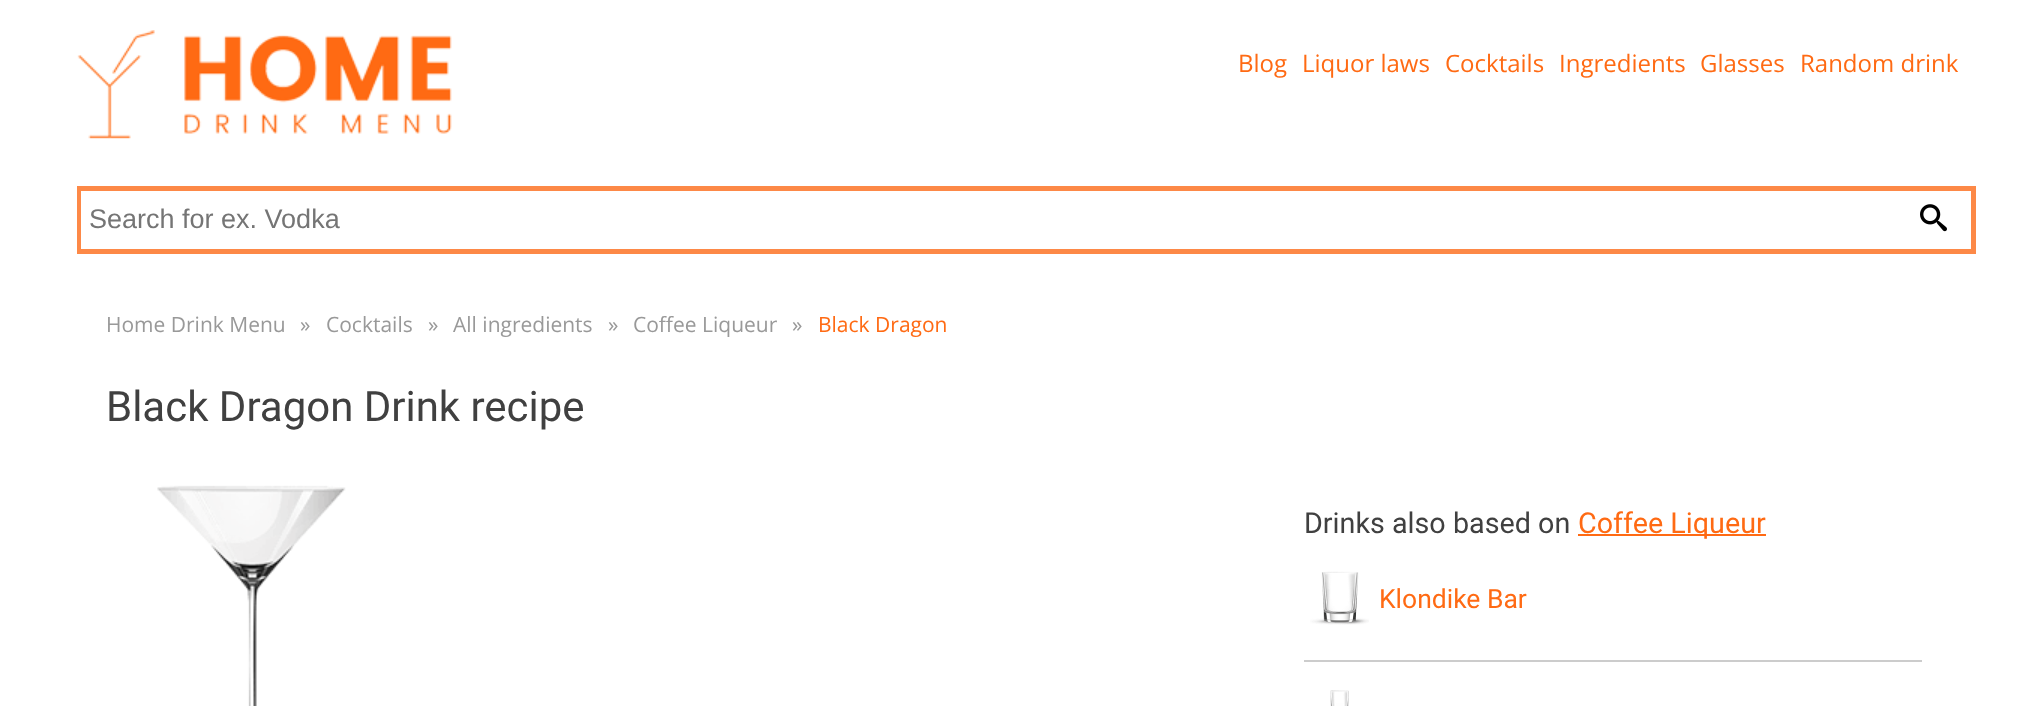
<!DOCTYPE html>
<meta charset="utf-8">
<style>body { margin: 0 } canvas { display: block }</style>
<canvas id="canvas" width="2041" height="706"></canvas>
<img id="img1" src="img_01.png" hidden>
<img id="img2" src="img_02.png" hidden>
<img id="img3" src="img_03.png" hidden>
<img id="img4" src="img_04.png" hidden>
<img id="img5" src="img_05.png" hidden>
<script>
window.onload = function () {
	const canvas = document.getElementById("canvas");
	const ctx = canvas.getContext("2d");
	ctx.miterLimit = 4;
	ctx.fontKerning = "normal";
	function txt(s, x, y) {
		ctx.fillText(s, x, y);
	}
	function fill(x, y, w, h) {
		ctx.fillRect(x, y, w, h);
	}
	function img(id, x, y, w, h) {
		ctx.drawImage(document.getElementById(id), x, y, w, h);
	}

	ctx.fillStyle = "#FFFFFF";
	fill(0, 0, 2041, 706);
	img("img1", 77, 30, 375, 109);
	ctx.strokeStyle = "#FD8947";
	ctx.lineWidth = 5;
	ctx.strokeRect(79.5, 188.5, 1894, 63);
	fill(81, 191, 1, 58);
	img("img2", 1920, 204, 27, 28);
	img("img3", 157, 485, 189, 221);
	ctx.fillStyle = "#FF6A13";
	fill(1578, 534, 188, 2);
	ctx.fillStyle = "#CCCCCC";
	fill(1304, 660, 618, 2);
	img("img4", 1310, 571, 59, 54);
	img("img5", 1330, 690, 19, 16);
	ctx.font = "24px Open Sans";
	ctx.fillStyle = "#FF6A13";
	txt("Blog", 1238, 72);
	txt("Liquor laws", 1302, 72);
	txt("Cocktails", 1445, 72);
	txt("Ingredients", 1559, 72);
	txt("Glasses", 1700, 72);
	txt("Random drink", 1800, 72);
	ctx.font = "27px Liberation Sans";
	ctx.fillStyle = "#757575";
	txt("Search for ex. Vodka", 89, 228);
	ctx.font = "21px Open Sans";
	ctx.fillStyle = "#999999";
	txt("Home Drink Menu", 106, 332);
	txt("»", 300, 332);
	txt("Cocktails", 326, 332);
	txt("»", 428, 332);
	txt("All ingredients", 453, 332);
	txt("»", 608, 332);
	txt("Coffee Liqueur", 633, 332);
	txt("»", 792, 332);
	ctx.fillStyle = "#FF6A13";
	txt("Black Dragon", 818, 332);
	ctx.font = "42px Roboto";
	ctx.fillStyle = "#404040";
	txt("Black Dragon Drink recipe", 106, 421);
	ctx.font = "28.75px Roboto";
	txt("Drinks also based on", 1304, 533);
	ctx.fillStyle = "#FF6A13";
	txt("Coffee Liqueur", 1578, 533);
	ctx.font = "26.5px Roboto";
	txt("Klondike Bar", 1379, 608);
};
</script>
